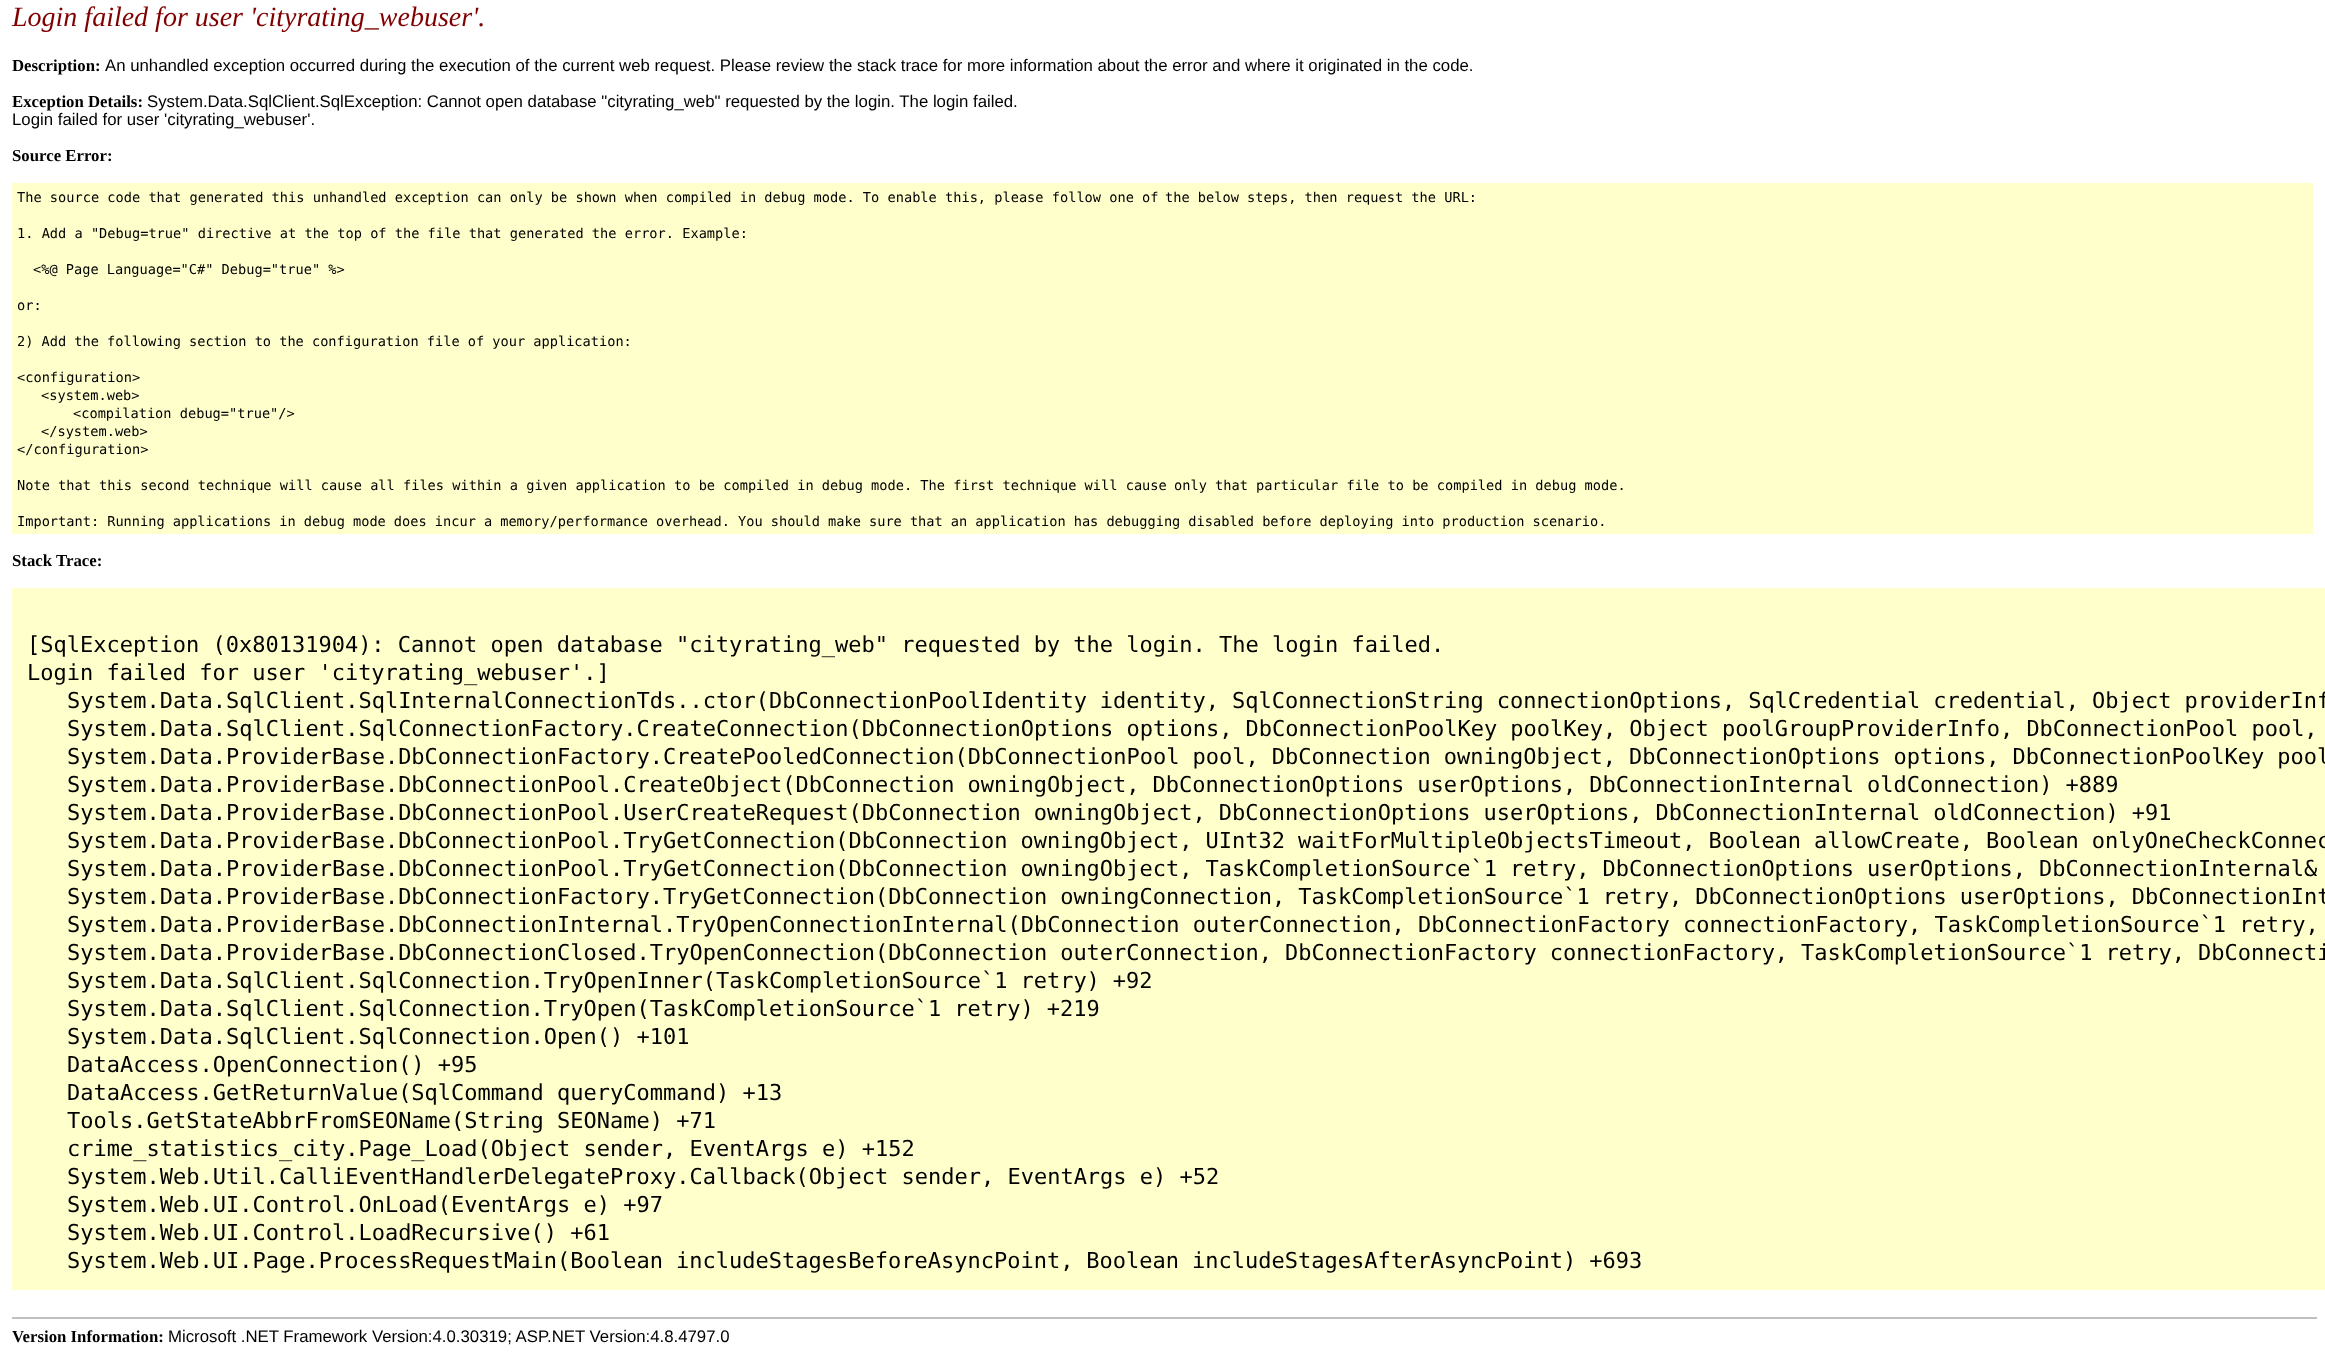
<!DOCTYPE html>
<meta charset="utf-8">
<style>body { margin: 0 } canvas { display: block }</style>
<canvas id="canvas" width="2325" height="1357"></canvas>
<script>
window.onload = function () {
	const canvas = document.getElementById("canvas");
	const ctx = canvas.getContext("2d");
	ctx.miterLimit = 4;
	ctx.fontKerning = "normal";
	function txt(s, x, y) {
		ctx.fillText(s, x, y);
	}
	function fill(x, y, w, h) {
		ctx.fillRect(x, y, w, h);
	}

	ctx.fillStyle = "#FFFFFF";
	fill(0, 0, 2325, 1357);
	ctx.fillStyle = "#FFFFCC";
	fill(12, 183, 2301, 351);
	fill(12, 588, 2313, 702);
	ctx.fillStyle = "#C0C0C0";
	fill(12, 1317, 2305, 2);
	ctx.font = "italic 28px Liberation Serif";
	ctx.fillStyle = "#800000";
	txt("Login failed for user 'cityrating_webuser'.", 12, 26);
	ctx.font = "bold 16.8px Liberation Serif";
	ctx.fillStyle = "#000000";
	txt("Description:", 12, 71);
	ctx.font = "16.8px Liberation Sans";
	txt("An unhandled exception occurred during the execution of the current web request. Please review the stack trace for more information about the error and where it originated in the code.", 105, 71);
	ctx.font = "bold 16.8px Liberation Serif";
	txt("Exception Details:", 12, 107);
	ctx.font = "16.8px Liberation Sans";
	txt("System.Data.SqlClient.SqlException: Cannot open database \"cityrating_web\" requested by the login. The login failed.", 147, 107);
	txt("Login failed for user 'cityrating_webuser'.", 12, 125);
	ctx.font = "bold 16.8px Liberation Serif";
	txt("Source Error:", 12, 161);
	ctx.font = "13.65px DejaVu Sans Mono";
	txt("The source code that generated this unhandled exception can only be shown when compiled in debug mode. To enable this, please follow one of", 17, 202);
	txt("the below steps, then request the URL:", 1165, 202);
	txt("1. Add a \"Debug=true\" directive at the top of the file that generated the error. Example:", 17, 238);
	ctx.wordSpacing = "-0.1px";
	txt("<%@ Page Language=\"C#\" Debug=\"true\" %>", 33, 274);
	ctx.wordSpacing = "0px";
	txt("or:", 17, 310);
	ctx.wordSpacing = "-0.1px";
	txt("2) Add the following section to the configuration file of your application:", 17, 346);
	ctx.wordSpacing = "0px";
	txt("<configuration>", 17, 382);
	txt("<system.web>", 41, 400);
	txt("<compilation debug=\"true\"/>", 73, 418);
	txt("<\/system.web>", 41, 436);
	txt("<\/configuration>", 17, 454);
	txt("Note that this second technique will cause all files within a given application to be compiled in debug mode. The first technique will cause", 17, 490);
	txt("only that particular file to be compiled in debug mode.", 1174, 490);
	ctx.wordSpacing = "-0.15px";
	txt("Important: Running applications in debug mode does incur a memory/performance overhead. You should make sure that an application has debugging disabled before deploying into production scenario.", 17, 526);
	ctx.wordSpacing = "0px";
	ctx.font = "bold 16.8px Liberation Serif";
	txt("Stack Trace:", 12, 566);
	ctx.font = "22px DejaVu Sans Mono";
	txt("[SqlException (0x80131904): Cannot open database \"cityrating_web\" requested by the login. The login failed.", 27, 652);
	txt("Login failed for user 'cityrating_webuser'.]", 27, 680);
	ctx.wordSpacing = "-0.25px";
	txt("System.Data.SqlClient.SqlInternalConnectionTds..ctor(DbConnectionPoolIdentity identity, SqlConnectionString connectionOptions, SqlCredential credential, Object providerInf", 67, 708);
	ctx.wordSpacing = "-0.15px";
	txt("System.Data.SqlClient.SqlConnectionFactory.CreateConnection(DbConnectionOptions options, DbConnectionPoolKey poolKey, Object poolGroupProviderInfo, DbConnectionPool pool,", 67, 736);
	ctx.wordSpacing = "-0.25px";
	txt("System.Data.ProviderBase.DbConnectionFactory.CreatePooledConnection(DbConnectionPool pool, DbConnection owningObject, DbConnectionOptions options, DbConnectionPoolKey pool", 67, 764);
	txt("System.Data.ProviderBase.DbConnectionPool.CreateObject(DbConnection owningObject, DbConnectionOptions userOptions, DbConnectionInternal oldConnection) +889", 67, 792);
	txt("System.Data.ProviderBase.DbConnectionPool.UserCreateRequest(DbConnection owningObject, DbConnectionOptions userOptions, DbConnectionInternal oldConnection) +91", 67, 820);
	txt("System.Data.ProviderBase.DbConnectionPool.TryGetConnection(DbConnection owningObject, UInt32 waitForMultipleObjectsTimeout, Boolean allowCreate, Boolean onlyOneCheckConnec", 67, 848);
	txt("System.Data.ProviderBase.DbConnectionPool.TryGetConnection(DbConnection owningObject, TaskCompletionSource`1 retry, DbConnectionOptions userOptions, DbConnectionInternal&", 67, 876);
	txt("System.Data.ProviderBase.DbConnectionFactory.TryGetConnection(DbConnection owningConnection, TaskCompletionSource`1 retry, DbConnectionOptions userOptions, DbConnectionInt", 67, 904);
	ctx.wordSpacing = "0px";
	txt("System.Data.ProviderBase.DbConnectionInternal.TryOpenConnectionInternal(DbConnection outerConnection, DbConnectionFactory connectionFactory, TaskCompletionSource`1 retry,", 67, 932);
	ctx.wordSpacing = "-0.25px";
	txt("System.Data.ProviderBase.DbConnectionClosed.TryOpenConnection(DbConnection outerConnection, DbConnectionFactory connectionFactory, TaskCompletionSource`1 retry, DbConnecti", 67, 960);
	txt("System.Data.SqlClient.SqlConnection.TryOpenInner(TaskCompletionSource`1 retry) +92", 67, 988);
	ctx.wordSpacing = "-0.15px";
	txt("System.Data.SqlClient.SqlConnection.TryOpen(TaskCompletionSource`1 retry) +219", 67, 1016);
	ctx.wordSpacing = "0px";
	txt("System.Data.SqlClient.SqlConnection.Open() +101", 67, 1044);
	txt("DataAccess.OpenConnection() +95", 67, 1072);
	txt("DataAccess.GetReturnValue(SqlCommand queryCommand) +13", 67, 1100);
	txt("Tools.GetStateAbbrFromSEOName(String SEOName) +71", 67, 1128);
	txt("crime_statistics_city.Page_Load(Object sender, EventArgs e) +152", 67, 1156);
	txt("System.Web.Util.CalliEventHandlerDelegateProxy.Callback(Object sender, EventArgs e) +52", 67, 1184);
	txt("System.Web.UI.Control.OnLoad(EventArgs e) +97", 67, 1212);
	txt("System.Web.UI.Control.LoadRecursive() +61", 67, 1240);
	ctx.wordSpacing = "-0.25px";
	txt("System.Web.UI.Page.ProcessRequestMain(Boolean includeStagesBeforeAsyncPoint, Boolean includeStagesAfterAsyncPoint) +693", 67, 1268);
	ctx.wordSpacing = "0px";
	ctx.font = "bold 16.8px Liberation Serif";
	txt("Version Information:", 12, 1342);
	ctx.font = "16.8px Liberation Sans";
	txt("Microsoft .NET Framework Version:4.0.30319; ASP.NET Version:4.8.4797.0", 168, 1342);
};
</script>
